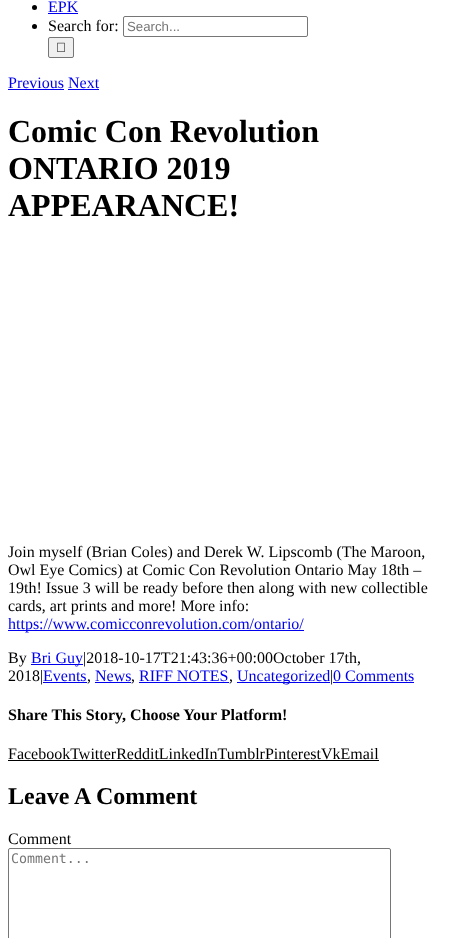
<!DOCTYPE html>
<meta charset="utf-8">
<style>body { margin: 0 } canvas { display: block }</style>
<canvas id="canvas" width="449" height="938"></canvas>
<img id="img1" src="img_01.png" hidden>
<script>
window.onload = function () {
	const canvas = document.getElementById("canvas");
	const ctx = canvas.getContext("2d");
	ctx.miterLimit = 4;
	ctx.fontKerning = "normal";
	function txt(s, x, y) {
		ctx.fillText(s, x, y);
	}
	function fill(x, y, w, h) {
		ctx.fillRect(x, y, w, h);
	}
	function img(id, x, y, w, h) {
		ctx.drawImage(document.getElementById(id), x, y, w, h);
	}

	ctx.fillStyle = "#FFFFFF";
	fill(0, 0, 449, 938);
	ctx.fillStyle = "#000000";
	ctx.beginPath();
	ctx.arc(34.5, 7.5, 2.5, 0, Math.PI * 2);
	ctx.fill();
	ctx.fillStyle = "#0000EE";
	fill(48, 13, 30, 1);
	ctx.fillStyle = "#000000";
	ctx.beginPath();
	ctx.arc(34.5, 26.5, 2.5, 0, Math.PI * 2);
	ctx.fill();
	ctx.beginPath();
	ctx.roundRect(123.5, 16.5, 184, 20, 1.5);
	ctx.strokeStyle = "#767676";
	ctx.stroke();
	ctx.fillStyle = "#EFEFEF";
	ctx.beginPath();
	ctx.roundRect(48.5, 37.5, 25, 20, 1.5);
	ctx.fill();
	ctx.stroke();
	img("img1", 57, 42, 8, 10);
	ctx.fillStyle = "#0000EE";
	fill(8, 89, 56, 1);
	fill(68, 89, 31, 1);
	fill(8, 630, 296, 1);
	fill(31, 664, 52, 1);
	fill(43, 682, 44, 1);
	fill(95, 682, 36, 1);
	fill(139, 682, 90, 1);
	fill(237, 682, 93, 1);
	fill(333, 682, 81, 1);
	ctx.fillStyle = "#000000";
	fill(8, 760, 371, 1);
	ctx.beginPath();
	ctx.roundRect(8.5, 848.5, 382, 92, 1.5);
	ctx.stroke();
	ctx.font = "16px Liberation Serif";
	ctx.fillStyle = "#0000EE";
	txt("EPK", 48, 12);
	ctx.fillStyle = "#000000";
	txt("Search for:", 48, 31);
	ctx.font = "13.25px Liberation Sans";
	ctx.fillStyle = "#757575";
	txt("Search...", 127, 31);
	ctx.font = "16px Liberation Serif";
	ctx.fillStyle = "#0000EE";
	txt("Previous Next", 8, 88);
	ctx.font = "bold 32px Liberation Serif";
	ctx.fillStyle = "#000000";
	txt("Comic Con Revolution", 8, 142);
	txt("ONTARIO 2019", 8, 179);
	txt("APPEARANCE!", 8, 216);
	ctx.font = "16px Liberation Serif";
	txt("Join myself (Brian Coles) and Derek W. Lipscomb (The Maroon,", 8, 557);
	txt("Owl Eye Comics) at Comic Con Revolution Ontario May 18th –", 8, 575);
	txt("19th! Issue 3 will be ready before then along with new collectible", 8, 593);
	txt("cards, art prints and more! More info:", 8, 611);
	ctx.fillStyle = "#0000EE";
	txt("https://www.comicconrevolution.com/ontario/", 8, 629);
	ctx.fillStyle = "#000000";
	txt("By", 8, 663);
	ctx.fillStyle = "#0000EE";
	txt("Bri Guy", 31, 663);
	ctx.fillStyle = "#000000";
	txt("|2018-10-17T21:43:36+00:00October 17th,", 83, 663);
	txt("2018|", 8, 681);
	ctx.fillStyle = "#0000EE";
	txt("Events", 43, 681);
	ctx.fillStyle = "#000000";
	txt(",", 87, 681);
	ctx.fillStyle = "#0000EE";
	txt("News", 95, 681);
	ctx.fillStyle = "#000000";
	txt(",", 131, 681);
	ctx.fillStyle = "#0000EE";
	txt("RIFF NOTES", 139, 681);
	ctx.fillStyle = "#000000";
	txt(",", 229, 681);
	ctx.fillStyle = "#0000EE";
	txt("Uncategorized", 237, 681);
	ctx.fillStyle = "#000000";
	txt("|", 330, 681);
	ctx.fillStyle = "#0000EE";
	txt("0 Comments", 333, 681);
	ctx.font = "bold 16px Liberation Serif";
	ctx.fillStyle = "#000000";
	txt("Share This Story, Choose Your Platform!", 8, 720);
	ctx.font = "16px Liberation Serif";
	txt("FacebookTwitterRedditLinkedInTumblrPinterestVkEmail", 8, 759);
	ctx.font = "bold 24px Liberation Serif";
	txt("Leave A Comment", 8, 804);
	ctx.font = "16px Liberation Serif";
	txt("Comment", 8, 844);
	ctx.font = "13.25px DejaVu Sans Mono";
	ctx.fillStyle = "#757575";
	txt("Comment...", 11, 863);
};
</script>
